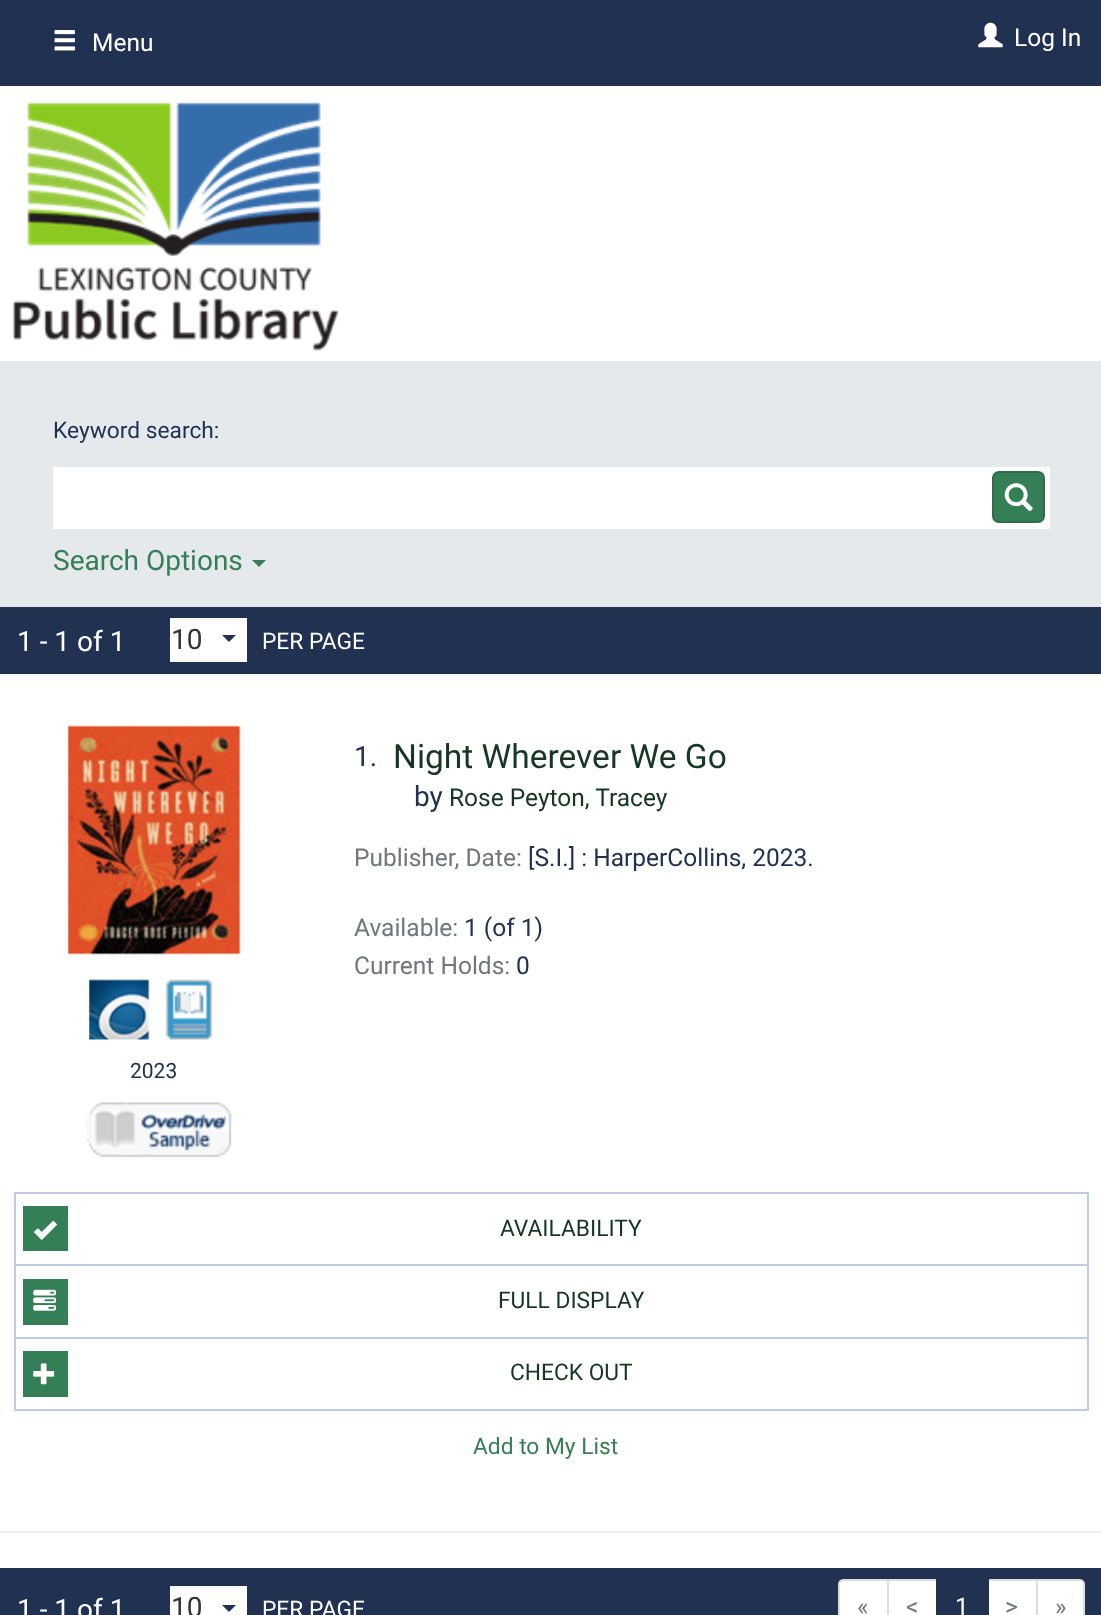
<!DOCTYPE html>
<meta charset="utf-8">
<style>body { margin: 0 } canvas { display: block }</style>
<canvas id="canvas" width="1101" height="1615"></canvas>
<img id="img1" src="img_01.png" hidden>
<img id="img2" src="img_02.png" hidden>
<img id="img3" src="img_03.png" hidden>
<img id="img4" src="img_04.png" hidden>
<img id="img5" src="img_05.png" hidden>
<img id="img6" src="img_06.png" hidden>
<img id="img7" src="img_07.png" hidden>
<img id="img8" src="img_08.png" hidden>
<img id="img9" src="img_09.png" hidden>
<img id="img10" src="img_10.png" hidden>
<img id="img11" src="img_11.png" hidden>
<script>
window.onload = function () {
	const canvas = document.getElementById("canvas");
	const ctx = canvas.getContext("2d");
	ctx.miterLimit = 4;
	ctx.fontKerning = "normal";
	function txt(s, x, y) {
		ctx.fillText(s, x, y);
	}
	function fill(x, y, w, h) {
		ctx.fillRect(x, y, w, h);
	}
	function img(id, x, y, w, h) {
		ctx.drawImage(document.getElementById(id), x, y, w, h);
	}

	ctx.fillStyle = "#213152";
	fill(0, 0, 1101, 1615);
	img("img1", 54, 30, 21, 21);
	img("img2", 978, 22, 25, 26);
	ctx.fillStyle = "#FFFFFF";
	fill(0, 86, 1101, 275);
	img("img3", 12, 102, 327, 249);
	fill(0, 674, 1101, 894);
	ctx.fillStyle = "#E5E9EC";
	fill(0, 361, 1101, 246);
	ctx.fillStyle = "#FFFFFF";
	fill(53, 467, 997, 62);
	ctx.fillStyle = "#347F56";
	ctx.beginPath();
	ctx.roundRect(993, 472, 51, 50, 6);
	ctx.fill();
	ctx.strokeStyle = "#2D6D4A";
	ctx.lineWidth = 2;
	ctx.stroke();
	img("img4", 1004, 483, 29, 29);
	ctx.beginPath();
	ctx.moveTo(252, 560);
	ctx.lineTo(266, 560);
	ctx.lineTo(259, 567);
	ctx.closePath();
	ctx.fill();
	ctx.fillStyle = "#FFFFFF";
	fill(170, 618, 77, 44);
	ctx.fillStyle = "#213152";
	ctx.beginPath();
	ctx.moveTo(222, 635);
	ctx.lineTo(236, 635);
	ctx.lineTo(229, 642);
	ctx.closePath();
	ctx.fill();
	img("img5", 68, 725, 173, 230);
	img("img6", 89, 979, 61, 61);
	img("img7", 165, 979, 48, 61);
	img("img8", 85, 1102, 147, 56);
	ctx.fillStyle = "#C0CCE5";
	fill(14, 1409, 1075, 2);
	fill(14, 1192, 1075, 2);
	fill(1087, 1192, 2, 72);
	fill(14, 1192, 2, 72);
	ctx.fillStyle = "#347F56";
	fill(23, 1206, 45, 45);
	img("img9", 34, 1220, 23, 20);
	ctx.fillStyle = "#C0CCE5";
	fill(14, 1264, 1075, 2);
	fill(1087, 1264, 2, 73);
	fill(14, 1264, 2, 73);
	ctx.fillStyle = "#347F56";
	fill(23, 1279, 45, 46);
	img("img10", 33, 1289, 23, 22);
	ctx.fillStyle = "#C0CCE5";
	fill(14, 1337, 1075, 2);
	fill(1087, 1337, 2, 72);
	fill(14, 1337, 2, 72);
	ctx.fillStyle = "#347F56";
	fill(23, 1351, 45, 46);
	img("img11", 33, 1363, 22, 22);
	ctx.fillStyle = "#EEEEEE";
	fill(0, 1531, 1101, 2);
	ctx.fillStyle = "#FFFFFF";
	fill(170, 1586, 77, 29);
	ctx.fillStyle = "#213152";
	ctx.beginPath();
	ctx.moveTo(222, 1605);
	ctx.lineTo(236, 1605);
	ctx.lineTo(229, 1612);
	ctx.closePath();
	ctx.fill();
	ctx.fillStyle = "#FFFFFF";
	ctx.beginPath();
	ctx.moveTo(843, 1580);
	ctx.lineTo(888, 1580);
	ctx.lineTo(888, 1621);
	ctx.lineTo(843, 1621);
	ctx.bezierCurveTo(841, 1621, 839, 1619, 839, 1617);
	ctx.lineTo(839, 1584);
	ctx.bezierCurveTo(839, 1582, 841, 1580, 843, 1580);
	ctx.closePath();
	ctx.fill();
	ctx.strokeStyle = "#DDDDDD";
	ctx.stroke();
	ctx.beginPath();
	ctx.rect(888, 1580, 49, 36);
	ctx.fill();
	ctx.stroke();
	ctx.beginPath();
	ctx.rect(988, 1580, 49, 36);
	ctx.fill();
	ctx.stroke();
	ctx.fillStyle = "#213152";
	fill(936, 1579, 53, 36);
	ctx.fillStyle = "#FFFFFF";
	ctx.beginPath();
	ctx.moveTo(1037, 1580);
	ctx.lineTo(1080, 1580);
	ctx.bezierCurveTo(1082, 1580, 1084, 1582, 1084, 1584);
	ctx.lineTo(1084, 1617);
	ctx.bezierCurveTo(1084, 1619, 1082, 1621, 1080, 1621);
	ctx.lineTo(1037, 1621);
	ctx.closePath();
	ctx.fill();
	ctx.stroke();
	ctx.font = "24.5px Roboto";
	txt("Menu", 92, 51);
	txt("Log In", 1014, 46);
	ctx.font = "22.75px Roboto";
	ctx.fillStyle = "#213152";
	txt("Keyword search:", 53, 438);
	ctx.font = "28px Roboto";
	ctx.fillStyle = "#347F56";
	txt("Search Options", 53, 570);
	ctx.fillStyle = "#FFFFFF";
	txt("1 - 1 of 1", 17, 651);
	ctx.fillStyle = "#333333";
	txt("10", 171, 649);
	ctx.font = "22.75px Roboto";
	ctx.fillStyle = "#FFFFFF";
	txt("PER PAGE", 262, 649);
	ctx.font = "28px Roboto";
	ctx.fillStyle = "#213152";
	txt("1.", 354, 766);
	ctx.font = "33.5px Roboto";
	ctx.fillStyle = "#163725";
	txt("Night Wherever We Go", 393, 768);
	ctx.font = "28px Roboto";
	ctx.fillStyle = "#213152";
	txt("by", 414, 806);
	ctx.font = "24.5px Roboto";
	ctx.fillStyle = "#163725";
	txt("Rose Peyton, Tracey", 449, 806);
	ctx.fillStyle = "#71777A";
	txt("Publisher, Date:", 354, 866);
	ctx.fillStyle = "#213152";
	txt("[S.I.] : HarperCollins, 2023.", 528, 866);
	ctx.fillStyle = "#71777A";
	txt("Available:", 354, 936);
	ctx.fillStyle = "#213152";
	txt("1 (of 1)", 464, 936);
	ctx.fillStyle = "#71777A";
	txt("Current Holds:", 354, 974);
	ctx.fillStyle = "#213152";
	txt("0", 516, 974);
	ctx.font = "21px Roboto";
	txt("2023", 130, 1078);
	ctx.font = "22.75px Roboto";
	ctx.fillStyle = "#163725";
	txt("AVAILABILITY", 500, 1236);
	txt("FULL DISPLAY", 498, 1308);
	txt("CHECK OUT", 510, 1380);
	ctx.fillStyle = "#347F56";
	txt("Add to My List", 473, 1454);
	ctx.font = "28px Roboto";
	ctx.fillStyle = "#FFFFFF";
	txt("1 - 1 of 1", 17, 1619);
	ctx.fillStyle = "#333333";
	txt("10", 171, 1617);
	ctx.font = "22.75px Roboto";
	ctx.fillStyle = "#FFFFFF";
	txt("PER PAGE", 262, 1617);
	ctx.font = "24.5px Roboto";
	ctx.fillStyle = "#71777A";
	txt("«", 857, 1615);
	txt("<", 906, 1615);
	ctx.fillStyle = "#FFFFFF";
	txt("1", 955, 1615);
	ctx.fillStyle = "#71777A";
	txt(">", 1005, 1615);
	txt("»", 1055, 1615);
};
</script>
